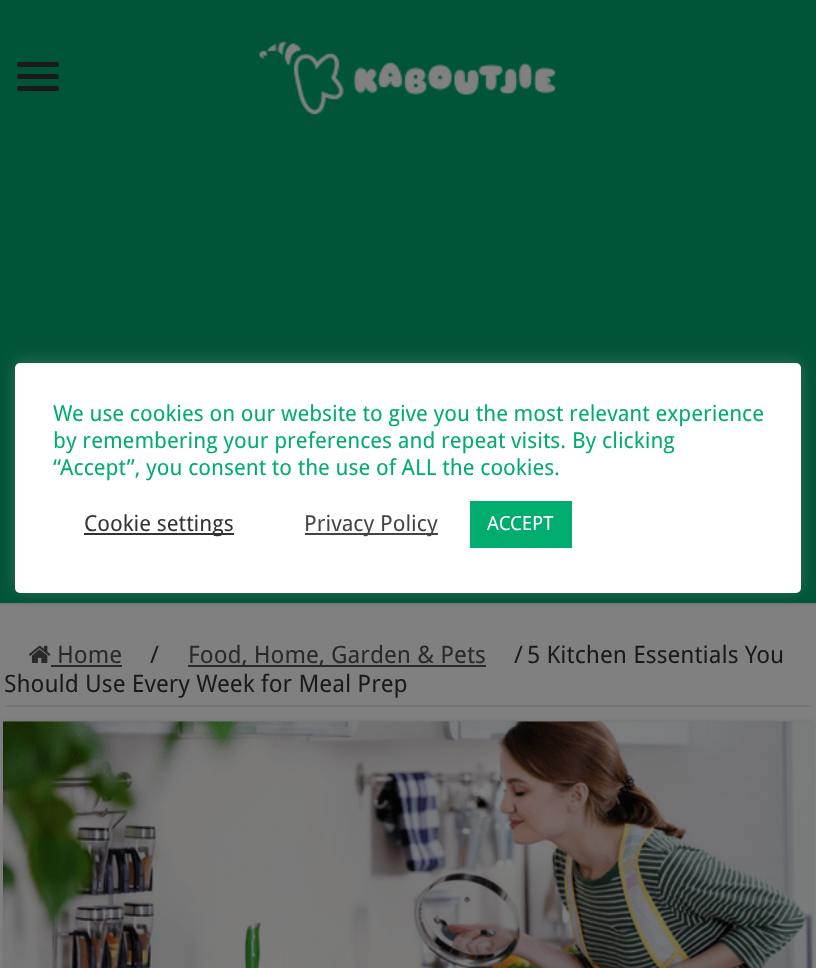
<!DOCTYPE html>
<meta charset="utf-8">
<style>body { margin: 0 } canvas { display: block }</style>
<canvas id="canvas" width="816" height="968"></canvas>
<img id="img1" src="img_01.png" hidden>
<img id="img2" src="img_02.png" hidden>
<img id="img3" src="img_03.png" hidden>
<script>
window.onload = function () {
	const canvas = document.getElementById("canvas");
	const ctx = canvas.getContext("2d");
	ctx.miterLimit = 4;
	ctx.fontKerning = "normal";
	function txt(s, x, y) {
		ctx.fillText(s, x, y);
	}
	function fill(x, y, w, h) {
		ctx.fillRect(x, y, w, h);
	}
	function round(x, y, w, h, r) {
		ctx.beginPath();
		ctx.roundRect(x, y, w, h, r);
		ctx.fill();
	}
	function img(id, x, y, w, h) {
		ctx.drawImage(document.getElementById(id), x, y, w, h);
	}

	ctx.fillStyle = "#808080";
	fill(0, 0, 816, 968);
	ctx.fillStyle = "#656565";
	ctx.filter = "blur(2px)";
	ctx.beginPath();
	ctx.rect(0, 0, 816, 603);
	ctx.fill();
	ctx.filter = "none";
	ctx.fillStyle = "#005538";
	fill(0, 0, 816, 603);
	ctx.fillStyle = "rgba(172, 171, 171, 0.3)";
	ctx.filter = "blur(7.5px)";
	ctx.beginPath();
	ctx.roundRect(15, 362, 786, 229, 5);
	ctx.fill();
	ctx.filter = "none";
	ctx.fillStyle = "#FFFFFF";
	round(15, 363, 786, 230, 5);
	ctx.fillStyle = "#333333";
	fill(84, 533, 150, 2);
	ctx.fillStyle = "#444444";
	fill(305, 533, 133, 2);
	ctx.fillStyle = "#00AD6F";
	fill(470, 501, 102, 47);
	ctx.fillStyle = "#1A1A1A";
	round(17, 62, 42, 5, 2.5);
	round(17, 74, 42, 5, 2.5);
	round(17, 86, 42, 5, 2.5);
	img("img1", 259, 41, 297, 74);
	ctx.fillStyle = "#777777";
	fill(5, 705, 807, 2);
	img("img2", 28, 645, 23, 18);
	ctx.fillStyle = "#2A2A2A";
	fill(51, 665, 71, 2);
	fill(188, 665, 298, 2);
	ctx.fillStyle = "#656565";
	ctx.filter = "blur(2px)";
	ctx.beginPath();
	ctx.rect(5, 722, 807, 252);
	ctx.fill();
	ctx.filter = "none";
	img("img3", 3, 721, 810, 247);
	ctx.font = "22px Droid Sans";
	ctx.fillStyle = "#00AD6F";
	txt("We use cookies on our website to give you the most relevant experience", 53, 421);
	txt("by remembering your preferences and repeat visits. By clicking", 53, 448);
	txt("“Accept”, you consent to the use of ALL the cookies.", 53, 475);
	ctx.fillStyle = "#333333";
	txt("Cookie settings", 84, 531);
	ctx.fillStyle = "#444444";
	txt("Privacy Policy", 304, 531);
	ctx.font = "19.5px Droid Sans";
	ctx.fillStyle = "#FFFFFF";
	txt("ACCEPT", 487, 530);
	ctx.font = "24px Droid Sans";
	ctx.fillStyle = "#2A2A2A";
	txt("Home", 57, 663);
	ctx.fillStyle = "#1A1A1A";
	txt("/", 150, 663);
	ctx.fillStyle = "#2A2A2A";
	txt("Food, Home, Garden & Pets", 188, 663);
	ctx.fillStyle = "#1A1A1A";
	txt("/", 514, 663);
	txt("5 Kitchen Essentials You", 527, 663);
	txt("Should Use Every Week for Meal Prep", 4, 692);
};
</script>
